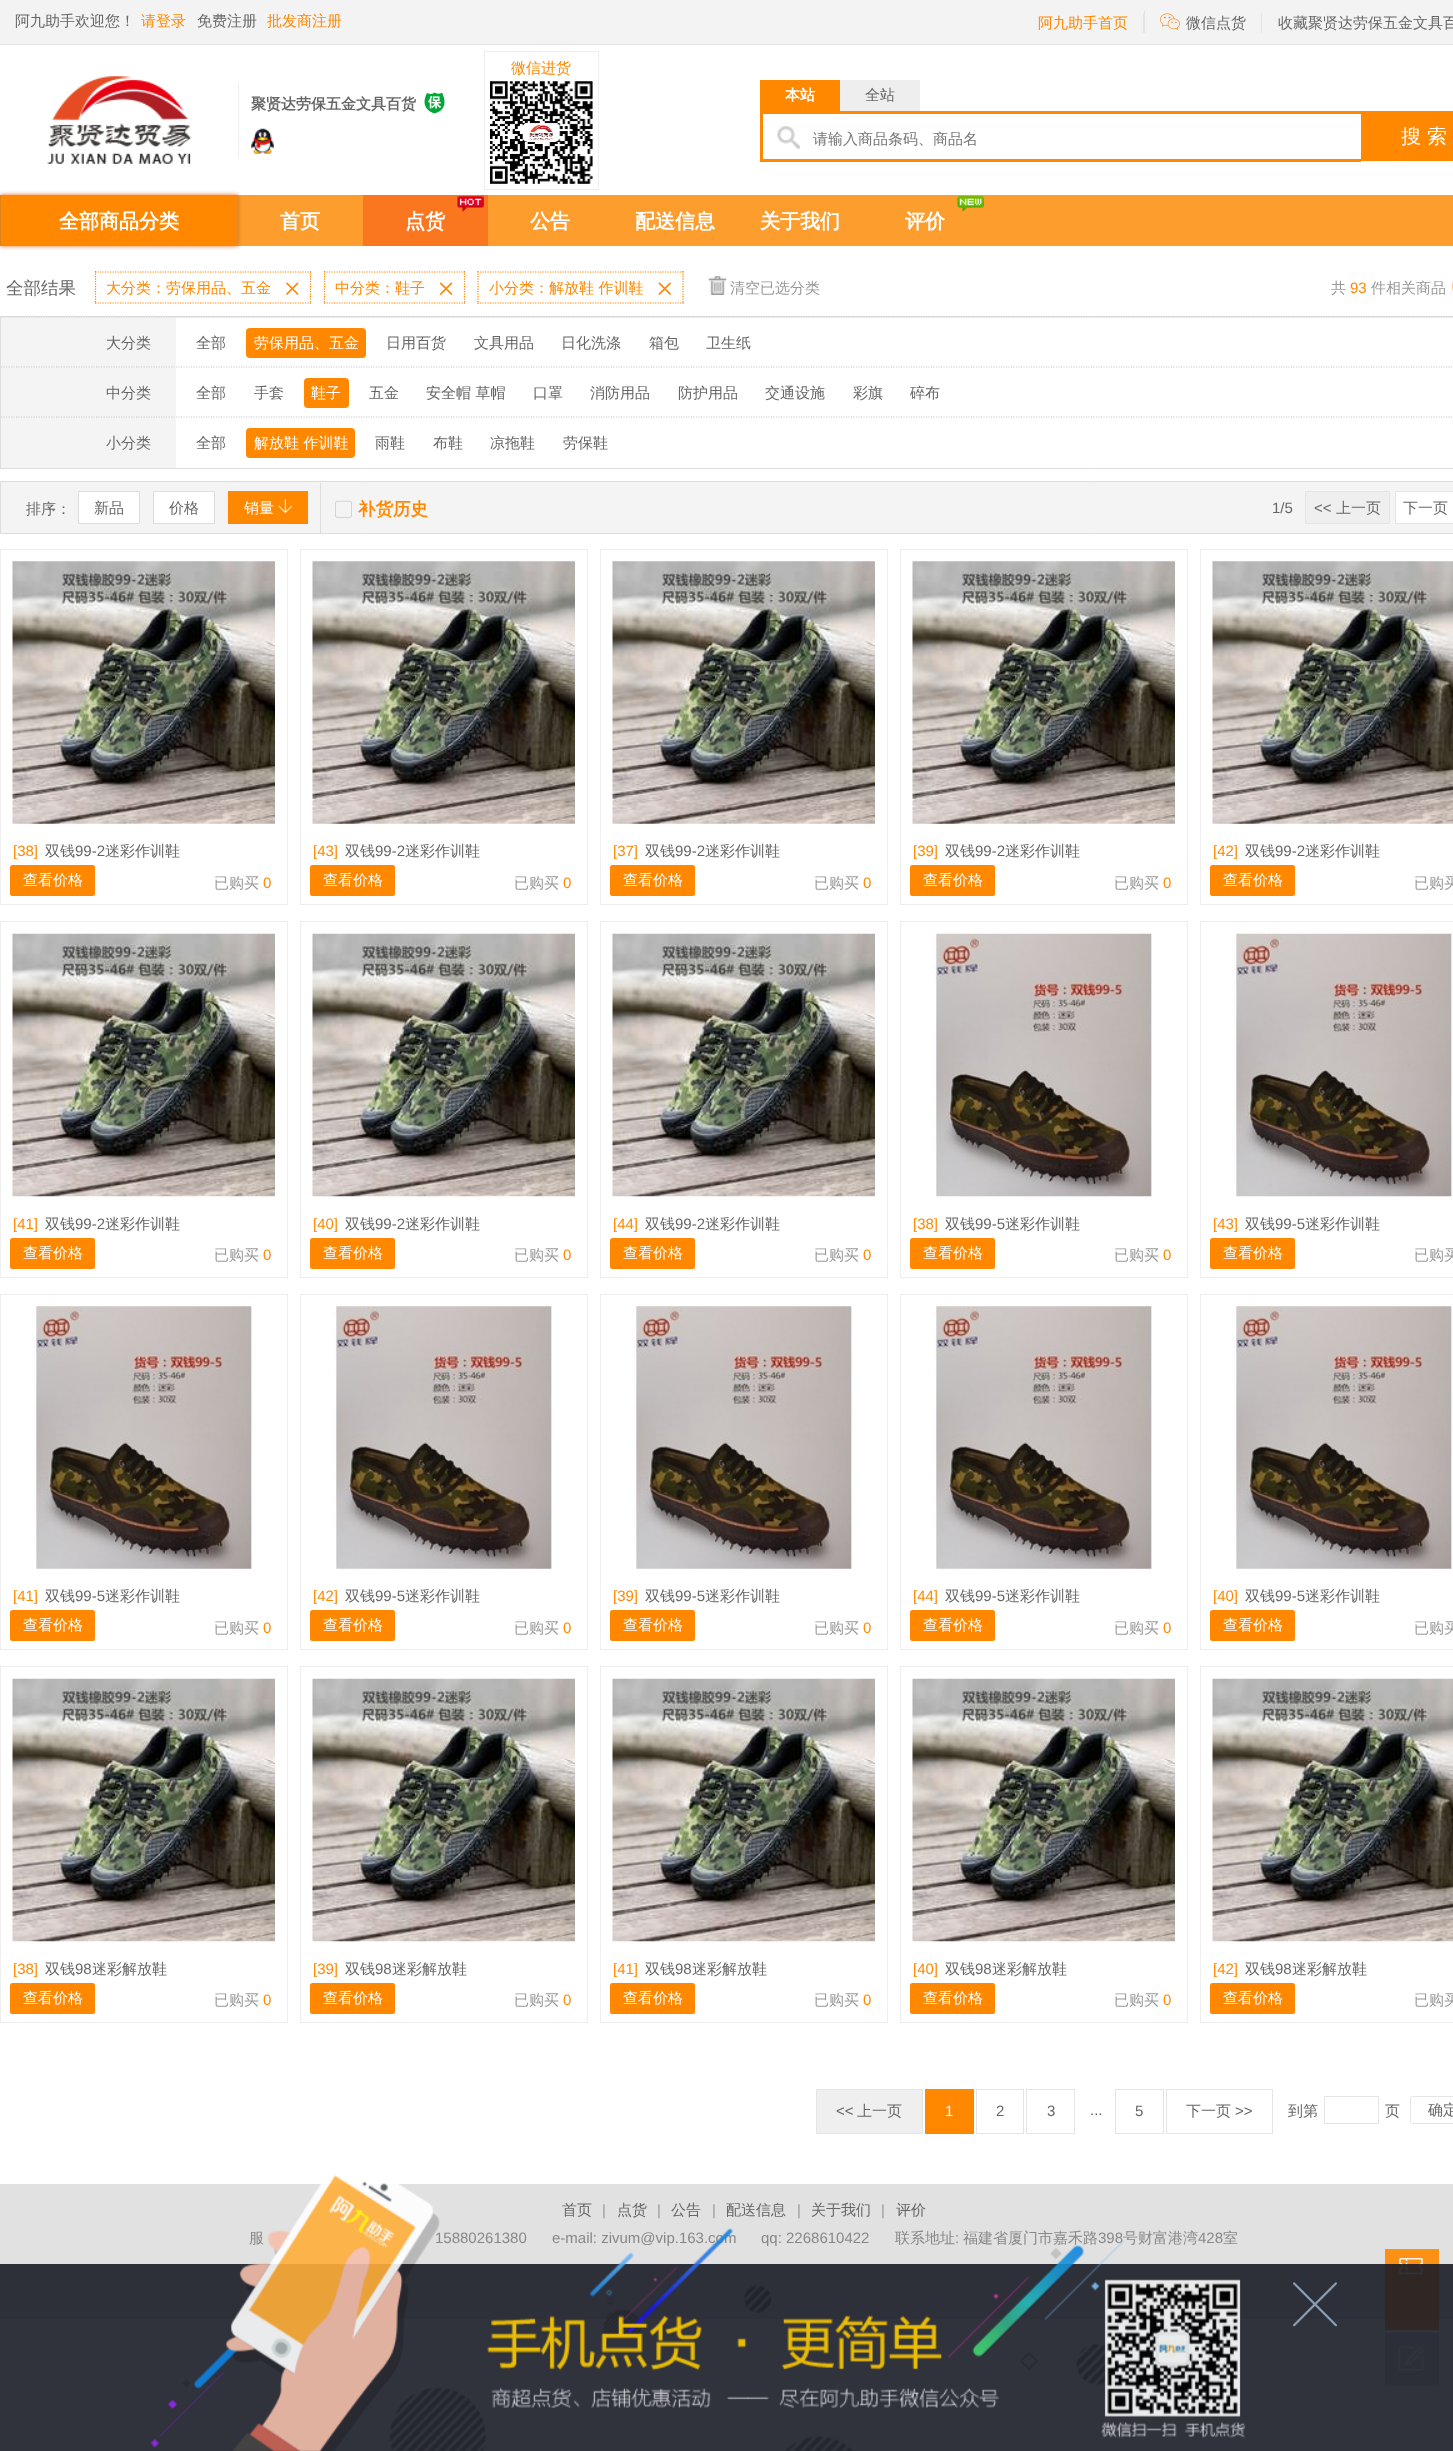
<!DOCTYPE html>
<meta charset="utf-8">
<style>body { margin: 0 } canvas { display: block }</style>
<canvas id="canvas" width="1453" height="2451"></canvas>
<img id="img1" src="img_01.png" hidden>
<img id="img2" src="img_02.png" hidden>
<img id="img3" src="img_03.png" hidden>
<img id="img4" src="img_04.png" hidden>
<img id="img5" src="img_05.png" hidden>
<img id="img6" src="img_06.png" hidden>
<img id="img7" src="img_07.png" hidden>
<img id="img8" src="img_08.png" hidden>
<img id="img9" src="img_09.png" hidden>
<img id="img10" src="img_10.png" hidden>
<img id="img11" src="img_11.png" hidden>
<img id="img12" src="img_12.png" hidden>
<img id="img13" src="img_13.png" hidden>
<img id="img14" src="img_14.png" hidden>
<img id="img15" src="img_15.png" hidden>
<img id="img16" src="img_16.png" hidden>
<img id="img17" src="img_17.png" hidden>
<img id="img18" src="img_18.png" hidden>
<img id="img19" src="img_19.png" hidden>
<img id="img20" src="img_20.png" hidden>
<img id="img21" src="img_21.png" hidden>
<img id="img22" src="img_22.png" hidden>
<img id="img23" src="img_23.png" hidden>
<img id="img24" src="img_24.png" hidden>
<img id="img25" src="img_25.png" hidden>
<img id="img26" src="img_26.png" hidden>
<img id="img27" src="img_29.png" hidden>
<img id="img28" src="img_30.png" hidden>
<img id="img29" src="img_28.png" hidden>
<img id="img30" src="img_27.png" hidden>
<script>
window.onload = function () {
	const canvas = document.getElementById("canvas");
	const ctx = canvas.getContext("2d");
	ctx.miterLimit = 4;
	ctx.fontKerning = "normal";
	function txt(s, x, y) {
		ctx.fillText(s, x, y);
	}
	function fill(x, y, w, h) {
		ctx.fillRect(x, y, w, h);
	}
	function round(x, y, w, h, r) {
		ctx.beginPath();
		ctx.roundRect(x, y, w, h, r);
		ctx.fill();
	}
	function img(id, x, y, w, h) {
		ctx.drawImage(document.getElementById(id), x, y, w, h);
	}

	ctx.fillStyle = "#FFFFFF";
	fill(0, 0, 1453, 2451);
	ctx.fillStyle = "#FF9419";
	fill(1385, 2319, 54, 11);
	ctx.fillStyle = "#F3F3F3";
	fill(0, 0, 1453, 44);
	ctx.fillStyle = "#E5E5E5";
	fill(0, 44, 1453, 1);
	fill(1143, 13, 1, 20);
	fill(1144, 10, 1, 23);
	img("img1", 1160, 13, 20, 17);
	fill(1261, 13, 1, 20);
	ctx.strokeStyle = "#EEEEEE";
	ctx.strokeRect(484.5, 51.5, 114, 138);
	img("img2", 490, 81, 103, 103);
	img("img3", 47, 76, 145, 88);
	ctx.fillStyle = "#EEEEEE";
	fill(238, 83, 1, 75);
	img("img4", 424, 92, 21, 22);
	img("img5", 251, 128, 23, 26);
	ctx.fillStyle = "#FF8800";
	fill(760, 80, 80, 31);
	ctx.fillStyle = "#EEEEEE";
	fill(840, 80, 80, 31);
	ctx.fillStyle = "#FF8800";
	fill(760, 111, 601, 3);
	fill(760, 159, 601, 3);
	fill(760, 111, 3, 50);
	img("img6", 777, 126, 23, 23);
	fill(1361, 111, 92, 50);
	ctx.fillStyle = "#FC9D2D";
	fill(238, 195, 1215, 51);
	ctx.fillStyle = "#DE691B";
	ctx.filter = "blur(2px)";
	ctx.beginPath();
	ctx.rect(0, 195, 238, 51);
	ctx.fill();
	ctx.filter = "none";
	ctx.fillStyle = "#FF8800";
	fill(1, 195, 237, 51);
	ctx.fillStyle = "#EA8C1D";
	fill(236, 195, 1, 51);
	ctx.fillStyle = "#DE841B";
	fill(0, 195, 1, 51);
	ctx.fillStyle = "#FB771F";
	fill(363, 195, 125, 51);
	img("img7", 457, 196, 27, 16);
	img("img8", 957, 196, 27, 16);
	ctx.beginPath();
	ctx.moveTo(95, 272);
	ctx.lineTo(311, 272);
	ctx.strokeStyle = "#FF8800";
	ctx.lineWidth = 1.2;
	ctx.setLineDash([1.25, 1.25]);
	ctx.stroke();
	ctx.beginPath();
	ctx.moveTo(310.5, 271);
	ctx.lineTo(310.5, 304);
	ctx.stroke();
	ctx.beginPath();
	ctx.moveTo(95, 303);
	ctx.lineTo(311, 303);
	ctx.stroke();
	ctx.beginPath();
	ctx.moveTo(95.5, 271);
	ctx.lineTo(95.5, 304);
	ctx.stroke();
	img("img9", 286, 282, 13, 13);
	ctx.beginPath();
	ctx.moveTo(324, 272);
	ctx.lineTo(465, 272);
	ctx.stroke();
	ctx.beginPath();
	ctx.moveTo(464.5, 271);
	ctx.lineTo(464.5, 304);
	ctx.stroke();
	ctx.beginPath();
	ctx.moveTo(324, 303);
	ctx.lineTo(465, 303);
	ctx.stroke();
	ctx.beginPath();
	ctx.moveTo(324.5, 271);
	ctx.lineTo(324.5, 304);
	ctx.stroke();
	img("img10", 439, 282, 14, 13);
	ctx.beginPath();
	ctx.moveTo(477.5, 272);
	ctx.lineTo(684, 272);
	ctx.stroke();
	ctx.beginPath();
	ctx.moveTo(683, 271);
	ctx.lineTo(683, 304);
	ctx.stroke();
	ctx.beginPath();
	ctx.moveTo(477.5, 303);
	ctx.lineTo(684, 303);
	ctx.stroke();
	ctx.beginPath();
	ctx.moveTo(478, 271);
	ctx.lineTo(478, 304);
	ctx.stroke();
	img("img11", 658, 282, 13, 13);
	img("img12", 708, 276, 19, 19);
	img("img13", 1452, 281, 1, 11);
	ctx.fillStyle = "#F4F4F4";
	ctx.beginPath();
	ctx.rect(0.5, 316.5, 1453, 152);
	ctx.fill();
	ctx.strokeStyle = "#DDDDDD";
	ctx.lineWidth = 1;
	ctx.setLineDash([]);
	ctx.stroke();
	ctx.beginPath();
	ctx.moveTo(1, 317);
	ctx.lineTo(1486, 317);
	ctx.strokeStyle = "#CCCCCC";
	ctx.lineWidth = 1.2;
	ctx.setLineDash([1.25, 1.25]);
	ctx.stroke();
	ctx.fillStyle = "#FFFFFF";
	fill(176, 318, 1277, 150);
	ctx.fillStyle = "#FF8800";
	round(246, 328, 120, 30, 4);
	ctx.beginPath();
	ctx.moveTo(1, 367);
	ctx.lineTo(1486, 367);
	ctx.stroke();
	round(304, 378, 45, 30, 4);
	ctx.beginPath();
	ctx.moveTo(1, 417);
	ctx.lineTo(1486, 417);
	ctx.stroke();
	round(246, 428, 109, 30, 4);
	ctx.fillStyle = "#F4F4F4";
	ctx.beginPath();
	ctx.rect(0.5, 481.5, 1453, 52);
	ctx.fill();
	ctx.strokeStyle = "#DDDDDD";
	ctx.lineWidth = 1;
	ctx.setLineDash([]);
	ctx.stroke();
	ctx.fillStyle = "#FFFFFF";
	ctx.beginPath();
	ctx.rect(78.5, 491.5, 61, 32);
	ctx.fill();
	ctx.stroke();
	ctx.beginPath();
	ctx.rect(153.5, 491.5, 61, 32);
	ctx.fill();
	ctx.stroke();
	ctx.fillStyle = "#FF8800";
	fill(228, 491, 80, 33);
	img("img14", 278, 499, 14, 14);
	ctx.fillStyle = "#DDDDDD";
	fill(320, 483, 1, 50);
	img("img15", 335, 500, 17, 18);
	ctx.fillStyle = "#EFEFEF";
	ctx.beginPath();
	ctx.rect(1305.5, 491.5, 84, 32);
	ctx.fill();
	ctx.strokeStyle = "#E5E5E5";
	ctx.stroke();
	ctx.fillStyle = "#FFFFFF";
	ctx.beginPath();
	ctx.rect(1395.5, 491.5, 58, 32);
	ctx.fill();
	ctx.stroke();
	ctx.strokeStyle = "#EEEEEE";
	ctx.strokeRect(0.5, 549.5, 287, 355);
	img("img16", 12, 561, 263, 263);
	ctx.fillStyle = "#FF8800";
	round(10, 865, 85, 31, 2.5);
	ctx.strokeRect(300.5, 549.5, 287, 355);
	img("img17", 312, 561, 263, 263);
	round(310, 865, 85, 31, 2.5);
	ctx.strokeRect(600.5, 549.5, 287, 355);
	img("img18", 612, 561, 263, 263);
	round(610, 865, 85, 31, 2.5);
	ctx.strokeRect(900.5, 549.5, 287, 355);
	img("img18", 912, 561, 263, 263);
	round(910, 865, 85, 31, 2.5);
	ctx.strokeRect(1200.5, 549.5, 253, 355);
	img("img19", 1212, 561, 241, 263);
	round(1210, 865, 85, 31, 2.5);
	ctx.strokeRect(0.5, 921.5, 287, 356);
	img("img20", 12, 933, 263, 264);
	round(10, 1238, 85, 31, 2.5);
	ctx.strokeRect(300.5, 921.5, 287, 356);
	img("img21", 312, 933, 263, 264);
	round(310, 1238, 85, 31, 2.5);
	ctx.strokeRect(600.5, 921.5, 287, 356);
	img("img22", 612, 933, 263, 264);
	round(610, 1238, 85, 31, 2.5);
	ctx.strokeRect(900.5, 921.5, 287, 356);
	img("img23", 932, 933, 220, 264);
	round(910, 1238, 85, 31, 2.5);
	ctx.strokeRect(1200.5, 921.5, 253, 356);
	img("img23", 1232, 933, 220, 264);
	round(1210, 1238, 85, 31, 2.5);
	ctx.strokeRect(0.5, 1294.5, 287, 355);
	img("img24", 32, 1306, 220, 263);
	round(10, 1610, 85, 31, 2.5);
	ctx.strokeRect(300.5, 1294.5, 287, 355);
	img("img25", 332, 1306, 220, 263);
	round(310, 1610, 85, 31, 2.5);
	ctx.strokeRect(600.5, 1294.5, 287, 355);
	img("img24", 632, 1306, 220, 263);
	round(610, 1610, 85, 31, 2.5);
	ctx.strokeRect(900.5, 1294.5, 287, 355);
	img("img24", 932, 1306, 220, 263);
	round(910, 1610, 85, 31, 2.5);
	ctx.strokeRect(1200.5, 1294.5, 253, 355);
	img("img24", 1232, 1306, 220, 263);
	round(1210, 1610, 85, 31, 2.5);
	ctx.strokeRect(0.5, 1666.5, 287, 356);
	img("img20", 12, 1678, 263, 264);
	round(10, 1983, 85, 31, 2.5);
	ctx.strokeRect(300.5, 1666.5, 287, 356);
	img("img21", 312, 1678, 263, 264);
	round(310, 1983, 85, 31, 2.5);
	ctx.strokeRect(600.5, 1666.5, 287, 356);
	img("img22", 612, 1678, 263, 264);
	round(610, 1983, 85, 31, 2.5);
	ctx.strokeRect(900.5, 1666.5, 287, 356);
	img("img22", 912, 1678, 263, 264);
	round(910, 1983, 85, 31, 2.5);
	ctx.strokeRect(1200.5, 1666.5, 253, 356);
	img("img26", 1212, 1678, 241, 264);
	round(1210, 1983, 85, 31, 2.5);
	ctx.fillStyle = "#EFEFEF";
	ctx.beginPath();
	ctx.rect(816.5, 2089.5, 106, 44);
	ctx.fill();
	ctx.strokeStyle = "#E5E5E5";
	ctx.stroke();
	ctx.fillStyle = "#FF8800";
	fill(925, 2089, 49, 45);
	ctx.strokeRect(976.5, 2089.5, 47, 44);
	ctx.strokeRect(1026.5, 2089.5, 48, 44);
	ctx.strokeRect(1115.5, 2089.5, 48, 44);
	ctx.strokeRect(1166.5, 2089.5, 106, 44);
	ctx.strokeRect(1324.5, 2096.5, 54, 27);
	ctx.beginPath();
	ctx.roundRect(1410.5, 2096.5, 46, 27, 2);
	ctx.stroke();
	ctx.fillStyle = "#E1E1E1";
	fill(0, 2184, 1453, 135);
	ctx.fillStyle = "#FC9116";
	fill(1385, 2249, 54, 70);
	img("img27", 1399, 2258, 24, 17);
	ctx.fillStyle = "#D7D7D7";
	fill(1385, 2333, 54, 53);
	img("img28", 1398, 2346, 26, 25);
	ctx.fillStyle = "rgba(26, 28, 39, 0.9)";
	fill(0, 2264, 1453, 187);
	img("img29", 1293, 2282, 44, 45);
	ctx.font = "500 15px WenQuanYi Zen Hei";
	ctx.fillStyle = "#666666";
	txt("阿九助手欢迎您！", 15, 26);
	ctx.fillStyle = "#FF8800";
	txt("请登录", 141, 26);
	ctx.fillStyle = "#666666";
	txt("免费注册", 197, 26);
	ctx.fillStyle = "#FF8800";
	txt("批发商注册", 267, 26);
	txt("阿九助手首页", 1038, 28);
	ctx.fillStyle = "#666666";
	txt("微信点货", 1186, 28);
	txt("收藏聚贤达劳保五金文具百", 1278, 28);
	ctx.fillStyle = "#FF8800";
	txt("微信进货", 511, 73);
	ctx.font = "bold 15px WenQuanYi Zen Hei";
	ctx.fillStyle = "#666666";
	txt("聚贤达劳保五金文具百货", 251, 109);
	ctx.fillStyle = "#FFFFFF";
	txt("本站", 785, 100);
	ctx.font = "500 15px WenQuanYi Zen Hei";
	ctx.fillStyle = "#666666";
	txt("全站", 865, 100);
	ctx.fillStyle = "#757575";
	txt("请输入商品条码、商品名", 813, 144);
	ctx.font = "500 20px WenQuanYi Zen Hei";
	ctx.fillStyle = "#FFFFFF";
	txt("搜 索", 1401, 143);
	ctx.font = "bold 20px WenQuanYi Zen Hei";
	txt("全部商品分类", 59, 228);
	txt("首页", 280, 228);
	txt("点货", 405, 228);
	txt("公告", 530, 228);
	txt("配送信息", 635, 228);
	txt("关于我们", 760, 228);
	txt("评价", 905, 228);
	ctx.font = "500 17.5px WenQuanYi Zen Hei";
	ctx.fillStyle = "#666666";
	txt("全部结果", 6, 294);
	ctx.font = "500 15px WenQuanYi Zen Hei";
	ctx.fillStyle = "#FF8800";
	txt("大分类：劳保用品、五金", 106, 293);
	txt("中分类：鞋子", 335, 293);
	txt("小分类：解放鞋 作训鞋", 489, 293);
	ctx.fillStyle = "#999999";
	txt("清空已选分类", 730, 293);
	txt("共", 1331, 293);
	ctx.font = "15px Liberation Sans";
	ctx.fillStyle = "#FF8800";
	txt("93", 1350, 293);
	ctx.font = "500 15px WenQuanYi Zen Hei";
	ctx.fillStyle = "#999999";
	txt("件相关商品", 1371, 293);
	ctx.fillStyle = "#666666";
	txt("大分类", 106, 348);
	txt("全部", 196, 348);
	ctx.fillStyle = "#FFFFFF";
	txt("劳保用品、五金", 254, 348);
	ctx.fillStyle = "#666666";
	txt("日用百货", 386, 348);
	txt("文具用品", 474, 348);
	txt("日化洗涤", 561, 348);
	txt("箱包", 649, 348);
	txt("卫生纸", 706, 348);
	txt("中分类", 106, 398);
	txt("全部", 196, 398);
	txt("手套", 254, 398);
	ctx.fillStyle = "#FFFFFF";
	txt("鞋子", 311, 398);
	ctx.fillStyle = "#666666";
	txt("五金", 369, 398);
	txt("安全帽 草帽", 426, 398);
	txt("口罩", 533, 398);
	txt("消防用品", 590, 398);
	txt("防护用品", 678, 398);
	txt("交通设施", 765, 398);
	txt("彩旗", 853, 398);
	txt("碎布", 910, 398);
	txt("小分类", 106, 448);
	txt("全部", 196, 448);
	ctx.fillStyle = "#FFFFFF";
	txt("解放鞋 作训鞋", 254, 448);
	ctx.fillStyle = "#666666";
	txt("雨鞋", 375, 448);
	txt("布鞋", 433, 448);
	txt("凉拖鞋", 490, 448);
	txt("劳保鞋", 563, 448);
	txt("排序：", 26, 514);
	txt("新品", 94, 513);
	txt("价格", 169, 513);
	ctx.fillStyle = "#FFFFFF";
	txt("销量", 244, 513);
	ctx.font = "bold 17.5px WenQuanYi Zen Hei";
	ctx.fillStyle = "#FF8800";
	txt("补货历史", 358, 515);
	ctx.font = "15px Liberation Sans";
	ctx.fillStyle = "#666666";
	txt("1/5", 1272, 513);
	txt("<<", 1314, 513);
	ctx.font = "500 15px WenQuanYi Zen Hei";
	txt("上一页", 1336, 513);
	txt("下一页", 1403, 513);
	ctx.font = "15px Liberation Sans";
	ctx.fillStyle = "#FF8800";
	txt("[38]", 13, 856);
	ctx.font = "500 15px WenQuanYi Zen Hei";
	ctx.fillStyle = "#666666";
	txt("双钱", 45, 856);
	ctx.font = "15px Liberation Sans";
	txt("99-2", 75, 856);
	ctx.font = "500 15px WenQuanYi Zen Hei";
	txt("迷彩作训鞋", 105, 856);
	ctx.fillStyle = "#FFFFFF";
	txt("查看价格", 23, 885);
	ctx.fillStyle = "#999999";
	txt("已购买", 214, 888);
	ctx.font = "15px Liberation Sans";
	ctx.fillStyle = "#FF8800";
	txt("0", 263, 888);
	txt("[43]", 313, 856);
	ctx.font = "500 15px WenQuanYi Zen Hei";
	ctx.fillStyle = "#666666";
	txt("双钱", 345, 856);
	ctx.font = "15px Liberation Sans";
	txt("99-2", 375, 856);
	ctx.font = "500 15px WenQuanYi Zen Hei";
	txt("迷彩作训鞋", 405, 856);
	ctx.fillStyle = "#FFFFFF";
	txt("查看价格", 323, 885);
	ctx.fillStyle = "#999999";
	txt("已购买", 514, 888);
	ctx.font = "15px Liberation Sans";
	ctx.fillStyle = "#FF8800";
	txt("0", 563, 888);
	txt("[37]", 613, 856);
	ctx.font = "500 15px WenQuanYi Zen Hei";
	ctx.fillStyle = "#666666";
	txt("双钱", 645, 856);
	ctx.font = "15px Liberation Sans";
	txt("99-2", 675, 856);
	ctx.font = "500 15px WenQuanYi Zen Hei";
	txt("迷彩作训鞋", 705, 856);
	ctx.fillStyle = "#FFFFFF";
	txt("查看价格", 623, 885);
	ctx.fillStyle = "#999999";
	txt("已购买", 814, 888);
	ctx.font = "15px Liberation Sans";
	ctx.fillStyle = "#FF8800";
	txt("0", 863, 888);
	txt("[39]", 913, 856);
	ctx.font = "500 15px WenQuanYi Zen Hei";
	ctx.fillStyle = "#666666";
	txt("双钱", 945, 856);
	ctx.font = "15px Liberation Sans";
	txt("99-2", 975, 856);
	ctx.font = "500 15px WenQuanYi Zen Hei";
	txt("迷彩作训鞋", 1005, 856);
	ctx.fillStyle = "#FFFFFF";
	txt("查看价格", 923, 885);
	ctx.fillStyle = "#999999";
	txt("已购买", 1114, 888);
	ctx.font = "15px Liberation Sans";
	ctx.fillStyle = "#FF8800";
	txt("0", 1163, 888);
	txt("[42]", 1213, 856);
	ctx.font = "500 15px WenQuanYi Zen Hei";
	ctx.fillStyle = "#666666";
	txt("双钱", 1245, 856);
	ctx.font = "15px Liberation Sans";
	txt("99-2", 1275, 856);
	ctx.font = "500 15px WenQuanYi Zen Hei";
	txt("迷彩作训鞋", 1305, 856);
	ctx.fillStyle = "#FFFFFF";
	txt("查看价格", 1223, 885);
	ctx.fillStyle = "#999999";
	txt("已购买", 1414, 888);
	ctx.font = "15px Liberation Sans";
	ctx.fillStyle = "#FF8800";
	txt("[41]", 13, 1229);
	ctx.font = "500 15px WenQuanYi Zen Hei";
	ctx.fillStyle = "#666666";
	txt("双钱", 45, 1229);
	ctx.font = "15px Liberation Sans";
	txt("99-2", 75, 1229);
	ctx.font = "500 15px WenQuanYi Zen Hei";
	txt("迷彩作训鞋", 105, 1229);
	ctx.fillStyle = "#FFFFFF";
	txt("查看价格", 23, 1258);
	ctx.fillStyle = "#999999";
	txt("已购买", 214, 1260);
	ctx.font = "15px Liberation Sans";
	ctx.fillStyle = "#FF8800";
	txt("0", 263, 1260);
	txt("[40]", 313, 1229);
	ctx.font = "500 15px WenQuanYi Zen Hei";
	ctx.fillStyle = "#666666";
	txt("双钱", 345, 1229);
	ctx.font = "15px Liberation Sans";
	txt("99-2", 375, 1229);
	ctx.font = "500 15px WenQuanYi Zen Hei";
	txt("迷彩作训鞋", 405, 1229);
	ctx.fillStyle = "#FFFFFF";
	txt("查看价格", 323, 1258);
	ctx.fillStyle = "#999999";
	txt("已购买", 514, 1260);
	ctx.font = "15px Liberation Sans";
	ctx.fillStyle = "#FF8800";
	txt("0", 563, 1260);
	txt("[44]", 613, 1229);
	ctx.font = "500 15px WenQuanYi Zen Hei";
	ctx.fillStyle = "#666666";
	txt("双钱", 645, 1229);
	ctx.font = "15px Liberation Sans";
	txt("99-2", 675, 1229);
	ctx.font = "500 15px WenQuanYi Zen Hei";
	txt("迷彩作训鞋", 705, 1229);
	ctx.fillStyle = "#FFFFFF";
	txt("查看价格", 623, 1258);
	ctx.fillStyle = "#999999";
	txt("已购买", 814, 1260);
	ctx.font = "15px Liberation Sans";
	ctx.fillStyle = "#FF8800";
	txt("0", 863, 1260);
	txt("[38]", 913, 1229);
	ctx.font = "500 15px WenQuanYi Zen Hei";
	ctx.fillStyle = "#666666";
	txt("双钱", 945, 1229);
	ctx.font = "15px Liberation Sans";
	txt("99-5", 975, 1229);
	ctx.font = "500 15px WenQuanYi Zen Hei";
	txt("迷彩作训鞋", 1005, 1229);
	ctx.fillStyle = "#FFFFFF";
	txt("查看价格", 923, 1258);
	ctx.fillStyle = "#999999";
	txt("已购买", 1114, 1260);
	ctx.font = "15px Liberation Sans";
	ctx.fillStyle = "#FF8800";
	txt("0", 1163, 1260);
	txt("[43]", 1213, 1229);
	ctx.font = "500 15px WenQuanYi Zen Hei";
	ctx.fillStyle = "#666666";
	txt("双钱", 1245, 1229);
	ctx.font = "15px Liberation Sans";
	txt("99-5", 1275, 1229);
	ctx.font = "500 15px WenQuanYi Zen Hei";
	txt("迷彩作训鞋", 1305, 1229);
	ctx.fillStyle = "#FFFFFF";
	txt("查看价格", 1223, 1258);
	ctx.fillStyle = "#999999";
	txt("已购买", 1414, 1260);
	ctx.font = "15px Liberation Sans";
	ctx.fillStyle = "#FF8800";
	txt("[41]", 13, 1601);
	ctx.font = "500 15px WenQuanYi Zen Hei";
	ctx.fillStyle = "#666666";
	txt("双钱", 45, 1601);
	ctx.font = "15px Liberation Sans";
	txt("99-5", 75, 1601);
	ctx.font = "500 15px WenQuanYi Zen Hei";
	txt("迷彩作训鞋", 105, 1601);
	ctx.fillStyle = "#FFFFFF";
	txt("查看价格", 23, 1630);
	ctx.fillStyle = "#999999";
	txt("已购买", 214, 1633);
	ctx.font = "15px Liberation Sans";
	ctx.fillStyle = "#FF8800";
	txt("0", 263, 1633);
	txt("[42]", 313, 1601);
	ctx.font = "500 15px WenQuanYi Zen Hei";
	ctx.fillStyle = "#666666";
	txt("双钱", 345, 1601);
	ctx.font = "15px Liberation Sans";
	txt("99-5", 375, 1601);
	ctx.font = "500 15px WenQuanYi Zen Hei";
	txt("迷彩作训鞋", 405, 1601);
	ctx.fillStyle = "#FFFFFF";
	txt("查看价格", 323, 1630);
	ctx.fillStyle = "#999999";
	txt("已购买", 514, 1633);
	ctx.font = "15px Liberation Sans";
	ctx.fillStyle = "#FF8800";
	txt("0", 563, 1633);
	txt("[39]", 613, 1601);
	ctx.font = "500 15px WenQuanYi Zen Hei";
	ctx.fillStyle = "#666666";
	txt("双钱", 645, 1601);
	ctx.font = "15px Liberation Sans";
	txt("99-5", 675, 1601);
	ctx.font = "500 15px WenQuanYi Zen Hei";
	txt("迷彩作训鞋", 705, 1601);
	ctx.fillStyle = "#FFFFFF";
	txt("查看价格", 623, 1630);
	ctx.fillStyle = "#999999";
	txt("已购买", 814, 1633);
	ctx.font = "15px Liberation Sans";
	ctx.fillStyle = "#FF8800";
	txt("0", 863, 1633);
	txt("[44]", 913, 1601);
	ctx.font = "500 15px WenQuanYi Zen Hei";
	ctx.fillStyle = "#666666";
	txt("双钱", 945, 1601);
	ctx.font = "15px Liberation Sans";
	txt("99-5", 975, 1601);
	ctx.font = "500 15px WenQuanYi Zen Hei";
	txt("迷彩作训鞋", 1005, 1601);
	ctx.fillStyle = "#FFFFFF";
	txt("查看价格", 923, 1630);
	ctx.fillStyle = "#999999";
	txt("已购买", 1114, 1633);
	ctx.font = "15px Liberation Sans";
	ctx.fillStyle = "#FF8800";
	txt("0", 1163, 1633);
	txt("[40]", 1213, 1601);
	ctx.font = "500 15px WenQuanYi Zen Hei";
	ctx.fillStyle = "#666666";
	txt("双钱", 1245, 1601);
	ctx.font = "15px Liberation Sans";
	txt("99-5", 1275, 1601);
	ctx.font = "500 15px WenQuanYi Zen Hei";
	txt("迷彩作训鞋", 1305, 1601);
	ctx.fillStyle = "#FFFFFF";
	txt("查看价格", 1223, 1630);
	ctx.fillStyle = "#999999";
	txt("已购买", 1414, 1633);
	ctx.font = "15px Liberation Sans";
	ctx.fillStyle = "#FF8800";
	txt("[38]", 13, 1974);
	ctx.font = "500 15px WenQuanYi Zen Hei";
	ctx.fillStyle = "#666666";
	txt("双钱", 45, 1974);
	ctx.font = "15px Liberation Sans";
	txt("98", 75, 1974);
	ctx.font = "500 15px WenQuanYi Zen Hei";
	txt("迷彩解放鞋", 92, 1974);
	ctx.fillStyle = "#FFFFFF";
	txt("查看价格", 23, 2003);
	ctx.fillStyle = "#999999";
	txt("已购买", 214, 2005);
	ctx.font = "15px Liberation Sans";
	ctx.fillStyle = "#FF8800";
	txt("0", 263, 2005);
	txt("[39]", 313, 1974);
	ctx.font = "500 15px WenQuanYi Zen Hei";
	ctx.fillStyle = "#666666";
	txt("双钱", 345, 1974);
	ctx.font = "15px Liberation Sans";
	txt("98", 375, 1974);
	ctx.font = "500 15px WenQuanYi Zen Hei";
	txt("迷彩解放鞋", 392, 1974);
	ctx.fillStyle = "#FFFFFF";
	txt("查看价格", 323, 2003);
	ctx.fillStyle = "#999999";
	txt("已购买", 514, 2005);
	ctx.font = "15px Liberation Sans";
	ctx.fillStyle = "#FF8800";
	txt("0", 563, 2005);
	txt("[41]", 613, 1974);
	ctx.font = "500 15px WenQuanYi Zen Hei";
	ctx.fillStyle = "#666666";
	txt("双钱", 645, 1974);
	ctx.font = "15px Liberation Sans";
	txt("98", 675, 1974);
	ctx.font = "500 15px WenQuanYi Zen Hei";
	txt("迷彩解放鞋", 692, 1974);
	ctx.fillStyle = "#FFFFFF";
	txt("查看价格", 623, 2003);
	ctx.fillStyle = "#999999";
	txt("已购买", 814, 2005);
	ctx.font = "15px Liberation Sans";
	ctx.fillStyle = "#FF8800";
	txt("0", 863, 2005);
	txt("[40]", 913, 1974);
	ctx.font = "500 15px WenQuanYi Zen Hei";
	ctx.fillStyle = "#666666";
	txt("双钱", 945, 1974);
	ctx.font = "15px Liberation Sans";
	txt("98", 975, 1974);
	ctx.font = "500 15px WenQuanYi Zen Hei";
	txt("迷彩解放鞋", 992, 1974);
	ctx.fillStyle = "#FFFFFF";
	txt("查看价格", 923, 2003);
	ctx.fillStyle = "#999999";
	txt("已购买", 1114, 2005);
	ctx.font = "15px Liberation Sans";
	ctx.fillStyle = "#FF8800";
	txt("0", 1163, 2005);
	txt("[42]", 1213, 1974);
	ctx.font = "500 15px WenQuanYi Zen Hei";
	ctx.fillStyle = "#666666";
	txt("双钱", 1245, 1974);
	ctx.font = "15px Liberation Sans";
	txt("98", 1275, 1974);
	ctx.font = "500 15px WenQuanYi Zen Hei";
	txt("迷彩解放鞋", 1292, 1974);
	ctx.fillStyle = "#FFFFFF";
	txt("查看价格", 1223, 2003);
	ctx.fillStyle = "#999999";
	txt("已购买", 1414, 2005);
	ctx.font = "15px Liberation Sans";
	ctx.fillStyle = "#666666";
	txt("<<", 836, 2116);
	ctx.font = "500 15px WenQuanYi Zen Hei";
	txt("上一页", 857, 2116);
	ctx.font = "15px Liberation Sans";
	ctx.fillStyle = "#FFFFFF";
	txt("1", 945, 2116);
	ctx.fillStyle = "#666666";
	txt("2", 996, 2116);
	txt("3", 1047, 2116);
	txt("...", 1090, 2115);
	txt("5", 1135, 2116);
	ctx.font = "500 15px WenQuanYi Zen Hei";
	txt("下一页", 1186, 2116);
	ctx.font = "15px Liberation Sans";
	txt(">>", 1235, 2116);
	ctx.font = "500 15px WenQuanYi Zen Hei";
	txt("到第", 1288, 2116);
	txt("页", 1385, 2116);
	txt("确定", 1428, 2115);
	txt("首页", 562, 2215);
	ctx.font = "15px Liberation Sans";
	ctx.fillStyle = "#999999";
	txt("|", 602, 2215);
	ctx.font = "500 15px WenQuanYi Zen Hei";
	ctx.fillStyle = "#666666";
	txt("点货", 617, 2215);
	ctx.font = "15px Liberation Sans";
	ctx.fillStyle = "#999999";
	txt("|", 657, 2215);
	ctx.font = "500 15px WenQuanYi Zen Hei";
	ctx.fillStyle = "#666666";
	txt("公告", 671, 2215);
	ctx.font = "15px Liberation Sans";
	ctx.fillStyle = "#999999";
	txt("|", 712, 2215);
	ctx.font = "500 15px WenQuanYi Zen Hei";
	ctx.fillStyle = "#666666";
	txt("配送信息", 726, 2215);
	ctx.font = "15px Liberation Sans";
	ctx.fillStyle = "#999999";
	txt("|", 797, 2215);
	ctx.font = "500 15px WenQuanYi Zen Hei";
	ctx.fillStyle = "#666666";
	txt("关于我们", 811, 2215);
	ctx.font = "15px Liberation Sans";
	ctx.fillStyle = "#999999";
	txt("|", 881, 2215);
	ctx.font = "500 15px WenQuanYi Zen Hei";
	ctx.fillStyle = "#666666";
	txt("评价", 896, 2215);
	ctx.fillStyle = "#888888";
	txt("服", 249, 2243);
	ctx.font = "15px Liberation Sans";
	txt("15880261380", 435, 2243);
	txt("e-mail: zivum@vip.163.com", 552, 2243);
	txt("qq: 2268610422", 761, 2243);
	ctx.font = "500 15px WenQuanYi Zen Hei";
	txt("联系地址", 895, 2243);
	ctx.font = "15px Liberation Sans";
	txt(":", 955, 2243);
	ctx.font = "500 15px WenQuanYi Zen Hei";
	txt("福建省厦门市嘉禾路", 963, 2243);
	ctx.font = "15px Liberation Sans";
	txt("398", 1098, 2243);
	ctx.font = "500 15px WenQuanYi Zen Hei";
	txt("号财富港湾", 1123, 2243);
	ctx.font = "15px Liberation Sans";
	txt("428", 1198, 2243);
	ctx.font = "500 15px WenQuanYi Zen Hei";
	txt("室", 1223, 2243);
	img("img30", 150, 2175, 1096, 276);
};
</script>
